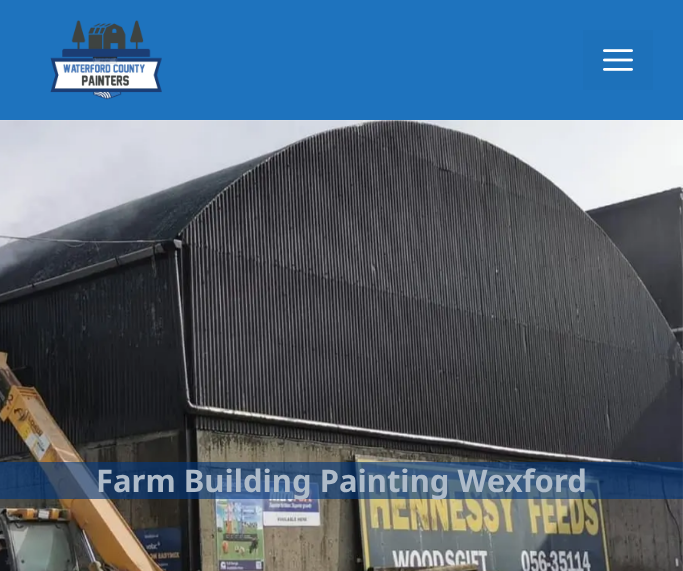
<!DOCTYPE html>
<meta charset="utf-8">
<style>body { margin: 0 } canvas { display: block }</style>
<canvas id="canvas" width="683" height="571"></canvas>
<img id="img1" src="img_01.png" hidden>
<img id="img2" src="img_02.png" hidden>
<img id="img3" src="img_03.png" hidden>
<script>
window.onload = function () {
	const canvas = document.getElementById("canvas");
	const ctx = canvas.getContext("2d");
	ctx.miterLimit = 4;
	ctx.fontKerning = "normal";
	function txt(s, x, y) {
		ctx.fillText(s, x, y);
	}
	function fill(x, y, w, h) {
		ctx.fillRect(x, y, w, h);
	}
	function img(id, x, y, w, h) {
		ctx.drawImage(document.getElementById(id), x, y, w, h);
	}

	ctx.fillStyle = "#FFFFFF";
	fill(0, 0, 683, 571);
	ctx.fillStyle = "#1E73BE";
	fill(0, 0, 683, 120);
	img("img1", 50, 20, 112, 80);
	ctx.fillStyle = "#1D71BA";
	fill(583, 30, 70, 60);
	img("img2", 603, 49, 30, 22);
	img("img3", 0, 120, 683, 451);
	ctx.fillStyle = "rgba(0, 55, 127, 0.6)";
	fill(0, 462, 683, 37);
	ctx.font = "bold 31px Noto Sans";
	ctx.fillStyle = "#AEBBC9";
	txt("Farm Building Painting Wexford", 96, 492);
};
</script>
